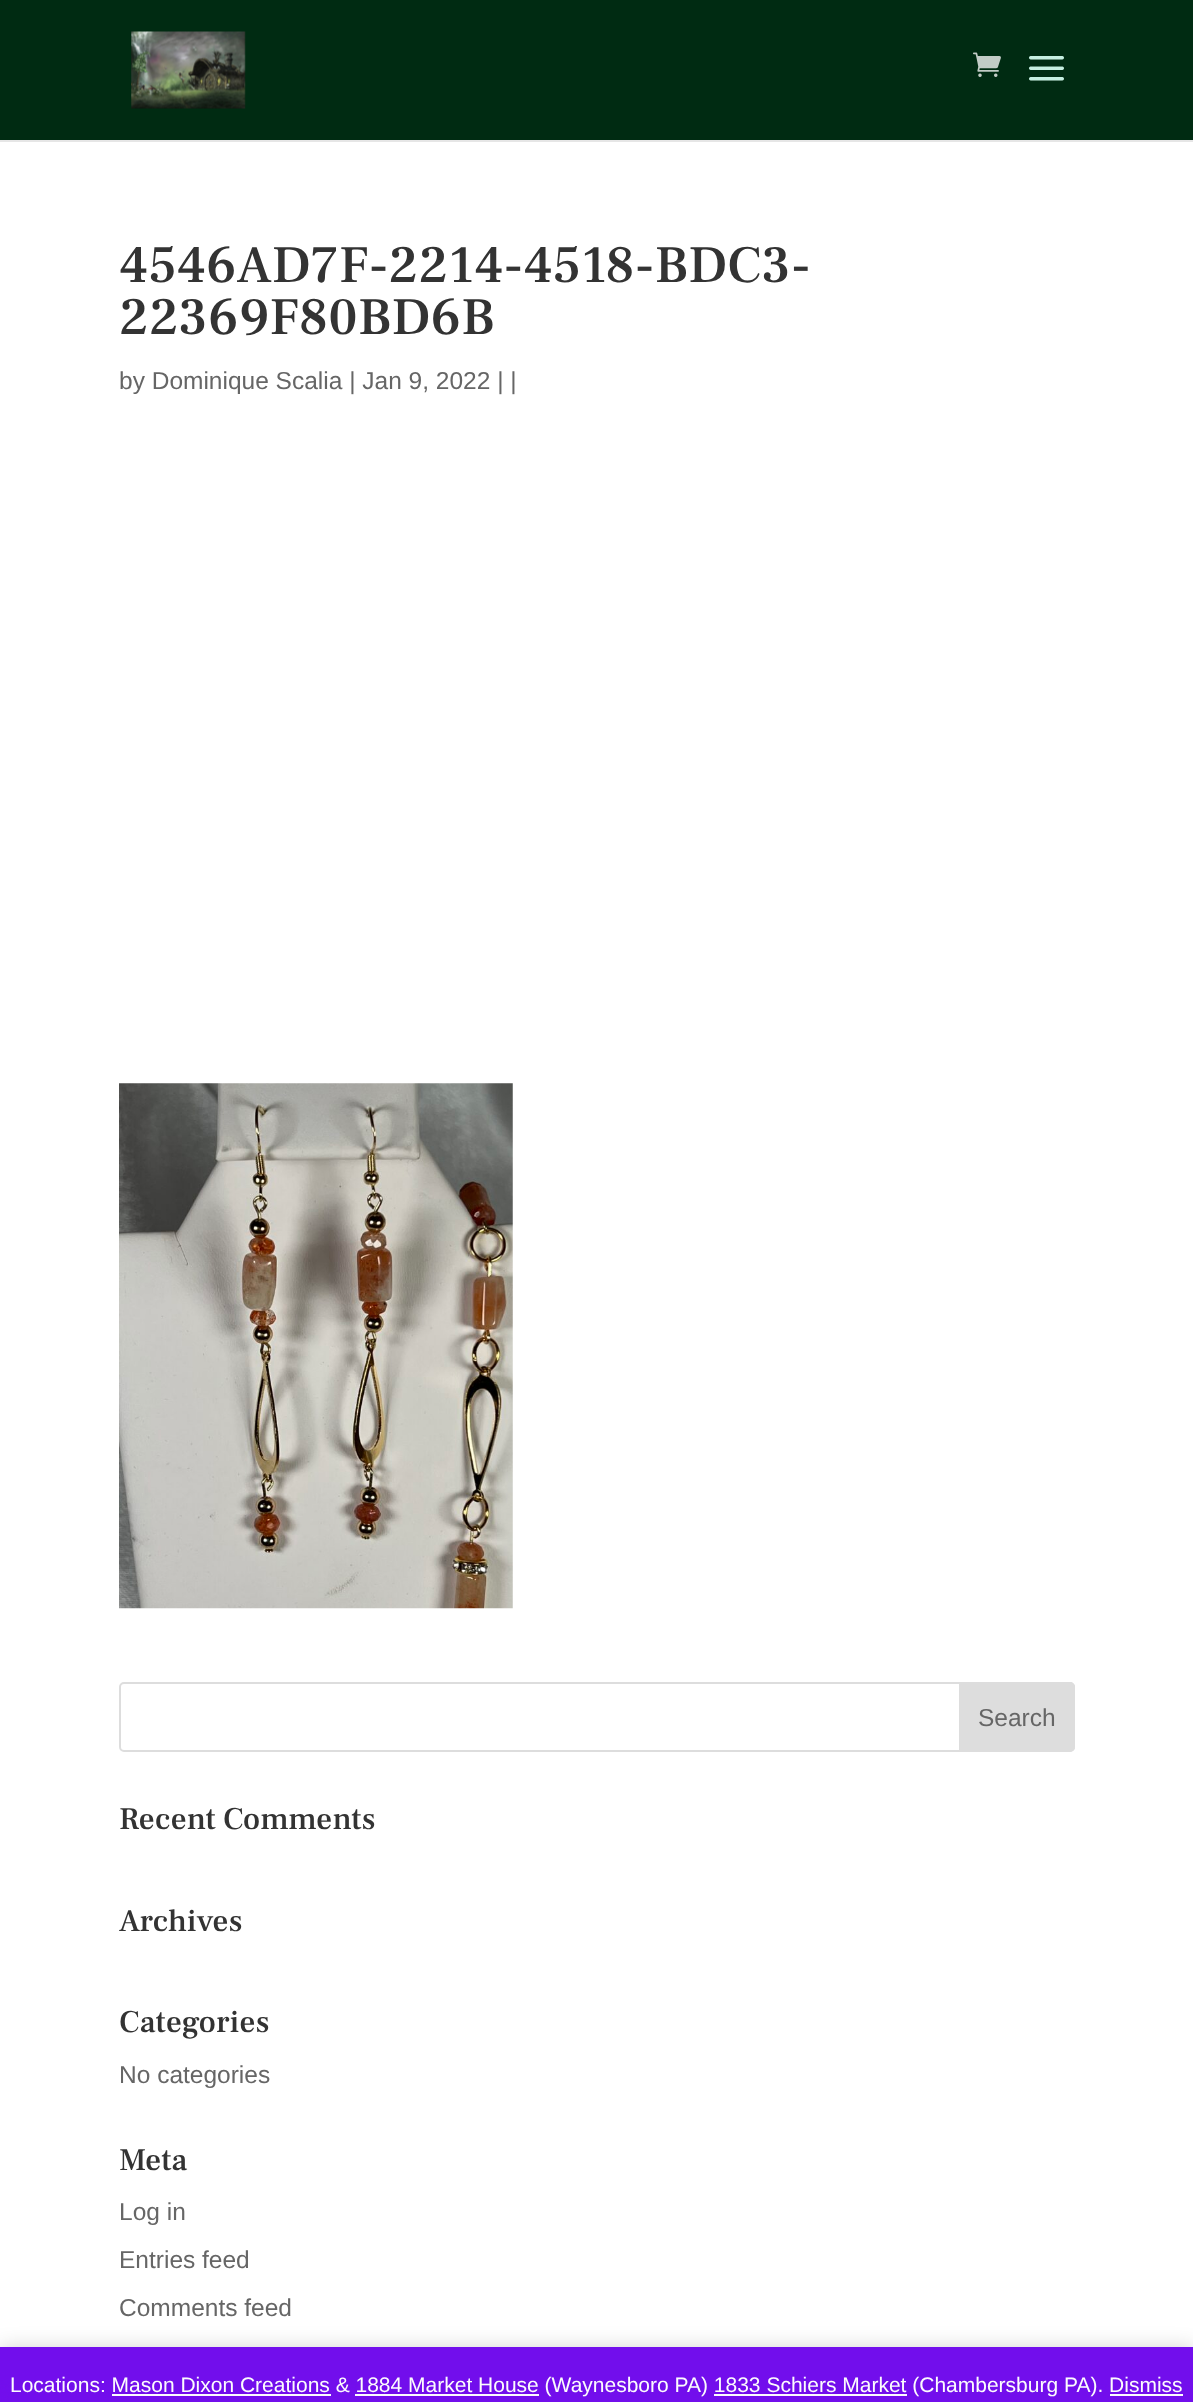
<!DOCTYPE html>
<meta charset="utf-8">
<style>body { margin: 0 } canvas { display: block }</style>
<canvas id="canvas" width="1193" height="2402"></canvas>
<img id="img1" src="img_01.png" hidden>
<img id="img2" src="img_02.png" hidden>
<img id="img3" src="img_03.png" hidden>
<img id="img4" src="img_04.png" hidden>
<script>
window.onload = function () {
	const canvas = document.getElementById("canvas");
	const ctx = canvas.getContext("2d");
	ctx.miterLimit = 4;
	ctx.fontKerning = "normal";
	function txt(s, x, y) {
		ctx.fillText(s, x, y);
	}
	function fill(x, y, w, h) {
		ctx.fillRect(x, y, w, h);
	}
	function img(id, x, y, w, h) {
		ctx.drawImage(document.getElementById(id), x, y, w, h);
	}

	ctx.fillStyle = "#FFFFFF";
	fill(0, 0, 1193, 2402);
	ctx.fillStyle = "#E6E6E6";
	ctx.beginPath();
	ctx.moveTo(0, 140);
	ctx.lineTo(0, 142);
	ctx.lineTo(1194, 142);
	ctx.lineTo(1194, 2);
	ctx.lineTo(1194, 140);
	ctx.closePath();
	ctx.fill();
	ctx.fillStyle = "#002B12";
	fill(0, 0, 1193, 140);
	img("img1", 131, 31, 115, 78);
	img("img2", 973, 52, 28, 25);
	img("img3", 1029, 56, 35, 25);
	img("img4", 119, 1083, 394, 526);
	ctx.beginPath();
	ctx.roundRect(120, 1683, 954, 68, 4);
	ctx.strokeStyle = "#DDDDDD";
	ctx.lineWidth = 2;
	ctx.stroke();
	ctx.fillStyle = "#DDDDDD";
	ctx.beginPath();
	ctx.roundRect(960, 1683, 114, 68, [0, 4, 4, 0]);
	ctx.fill();
	ctx.stroke();
	ctx.fillStyle = "rgba(0, 0, 0, 0.2)";
	ctx.filter = "blur(10.5px)";
	ctx.beginPath();
	ctx.rect(0, 2349, 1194, 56);
	ctx.fill();
	ctx.filter = "none";
	ctx.fillStyle = "#720EEC";
	fill(0, 2347, 1193, 55);
	ctx.fillStyle = "#FCFBFE";
	fill(112, 2394, 219, 2);
	fill(355, 2394, 184, 2);
	fill(714, 2394, 193, 2);
	fill(1110, 2394, 73, 2);
	ctx.font = "500 52.5px Frank Ruhl Libre";
	ctx.fillStyle = "#333333";
	txt("4546AD7F-2214-4518-BDC3-", 119, 282);
	txt("22369F80BD6B", 119, 334);
	ctx.font = "24.5px Liberation Sans";
	ctx.fillStyle = "#666666";
	txt("by Dominique Scalia | Jan 9, 2022 | |", 119, 389);
	txt("Search", 978, 1726);
	ctx.font = "500 31.5px Frank Ruhl Libre";
	ctx.fillStyle = "#333333";
	txt("Recent Comments", 119, 1829);
	txt("Archives", 119, 1931);
	txt("Categories", 119, 2032);
	ctx.font = "24.5px Liberation Sans";
	ctx.fillStyle = "#666666";
	txt("No categories", 119, 2083);
	ctx.font = "500 31.5px Frank Ruhl Libre";
	ctx.fillStyle = "#333333";
	txt("Meta", 119, 2170);
	ctx.font = "24.5px Liberation Sans";
	ctx.fillStyle = "#666666";
	txt("Log in", 119, 2220);
	txt("Entries feed", 119, 2268);
	txt("Comments feed", 119, 2316);
	ctx.font = "21px Liberation Sans";
	ctx.fillStyle = "#FCFBFE";
	txt("Locations: Mason Dixon Creations & 1884 Market House (Waynesboro PA) 1833 Schiers Market (Chambersburg PA). Dismiss", 10, 2392);
};
</script>
